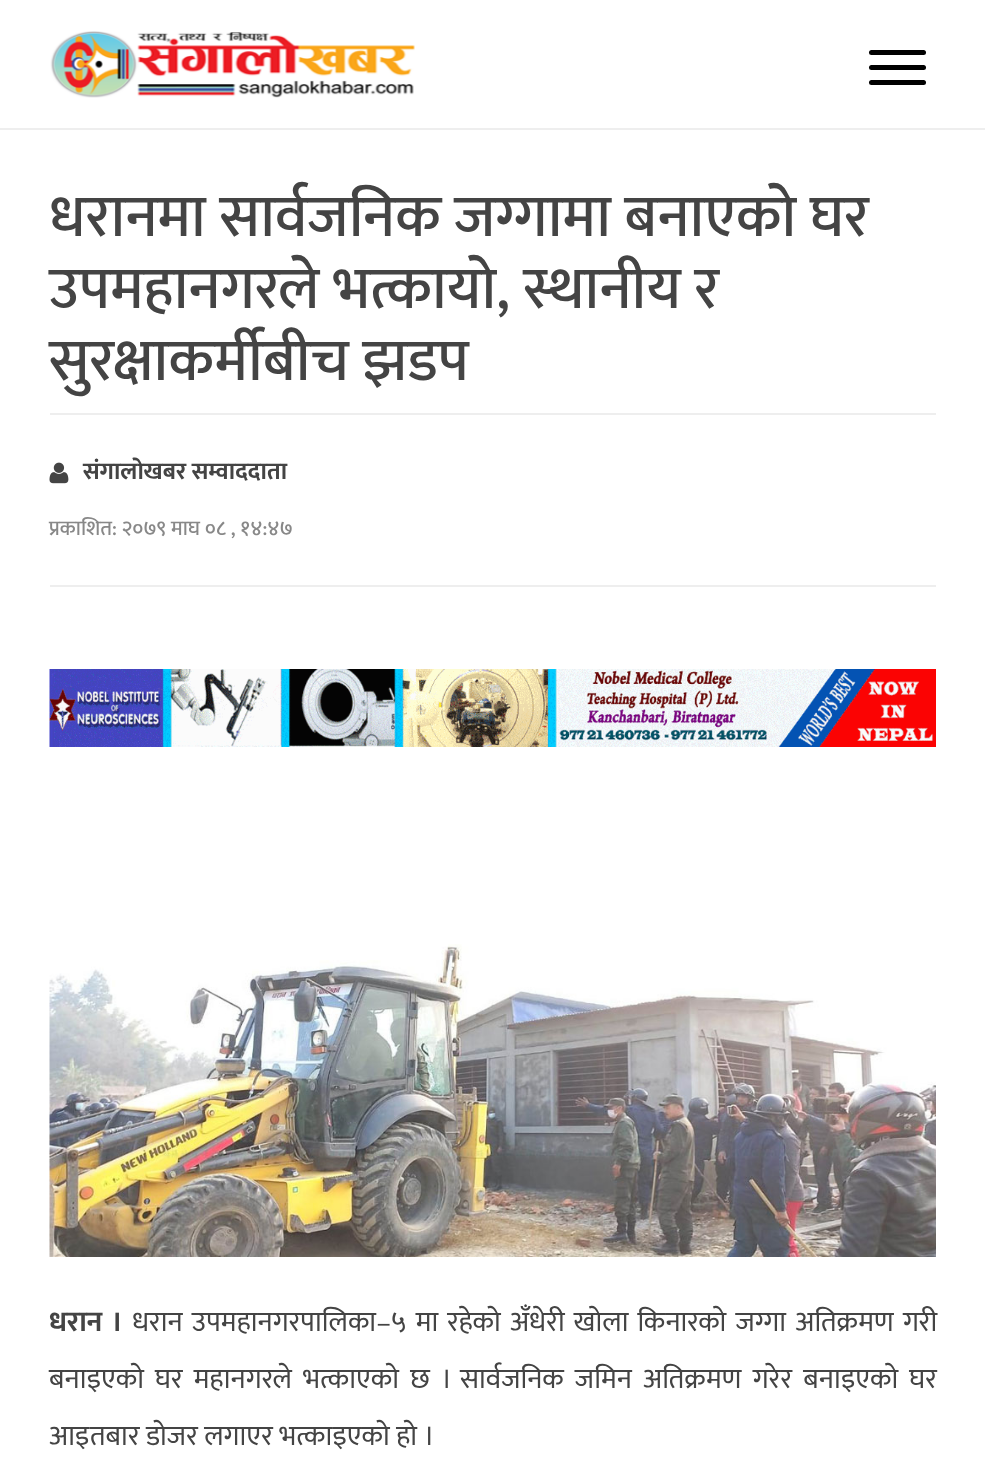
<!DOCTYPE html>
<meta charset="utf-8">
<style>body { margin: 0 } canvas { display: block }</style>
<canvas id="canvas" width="985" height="1473"></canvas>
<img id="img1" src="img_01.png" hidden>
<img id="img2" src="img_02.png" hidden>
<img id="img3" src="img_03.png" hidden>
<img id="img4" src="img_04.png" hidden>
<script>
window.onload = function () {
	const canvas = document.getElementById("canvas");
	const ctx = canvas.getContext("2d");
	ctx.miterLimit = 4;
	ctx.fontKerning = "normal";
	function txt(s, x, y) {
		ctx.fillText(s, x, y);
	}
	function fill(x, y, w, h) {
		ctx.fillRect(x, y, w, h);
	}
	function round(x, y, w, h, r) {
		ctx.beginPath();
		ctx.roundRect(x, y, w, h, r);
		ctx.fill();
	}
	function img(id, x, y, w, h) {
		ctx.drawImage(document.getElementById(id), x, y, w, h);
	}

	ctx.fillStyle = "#FFFFFF";
	fill(0, 0, 985, 1473);
	ctx.fillStyle = "#EEEEEE";
	fill(0, 128, 985, 2);
	img("img1", 50, 31, 365, 67);
	ctx.fillStyle = "#000000";
	round(869, 50, 57, 5, 2.5);
	round(869, 80, 57, 5, 2.5);
	round(869, 65, 57, 5, 2.5);
	ctx.fillStyle = "#EEEEEE";
	fill(50, 413, 886, 2);
	img("img2", 49, 462, 20, 22);
	fill(50, 585, 886, 2);
	img("img3", 49, 669, 887, 78);
	img("img4", 49, 944, 887, 313);
	ctx.font = "500 60px Ek Mukta";
	ctx.fillStyle = "#444444";
	txt("धरानमा सार्वजनिक जग्गामा बनाएको घर", 49, 236);
	txt("उपमहानगरले भत्कायो, स्थानीय र", 49, 308);
	txt("सुरक्षाकर्मीबीच झडप", 49, 380);
	ctx.font = "bold 24px Ek Mukta";
	txt("संगालोखबर सम्वाददाता", 83, 479);
	ctx.font = "500 21px Ek Mukta";
	ctx.fillStyle = "#888888";
	txt("प्रकाशित: २०७९ माघ ०८ , १४:४७", 49, 535);
	ctx.wordSpacing = "2.75px";
	ctx.font = "bold 28.5px Ek Mukta";
	ctx.fillStyle = "#444444";
	txt("धरान ।", 49, 1331);
	ctx.font = "28.5px Ek Mukta";
	txt("धरान उपमहानगरपालिका–५ मा रहेको अँधेरी खोला किनारको जग्गा अतिक्रमण गरी", 132, 1331);
	ctx.wordSpacing = "4.75px";
	txt("बनाइएको घर महानगरले भत्काएको छ । सार्वजनिक जमिन अतिक्रमण गरेर बनाइएको घर", 49, 1388);
	ctx.wordSpacing = "0px";
	txt("आइतबार डोजर लगाएर भत्काइएको हो ।", 49, 1445);
};
</script>
